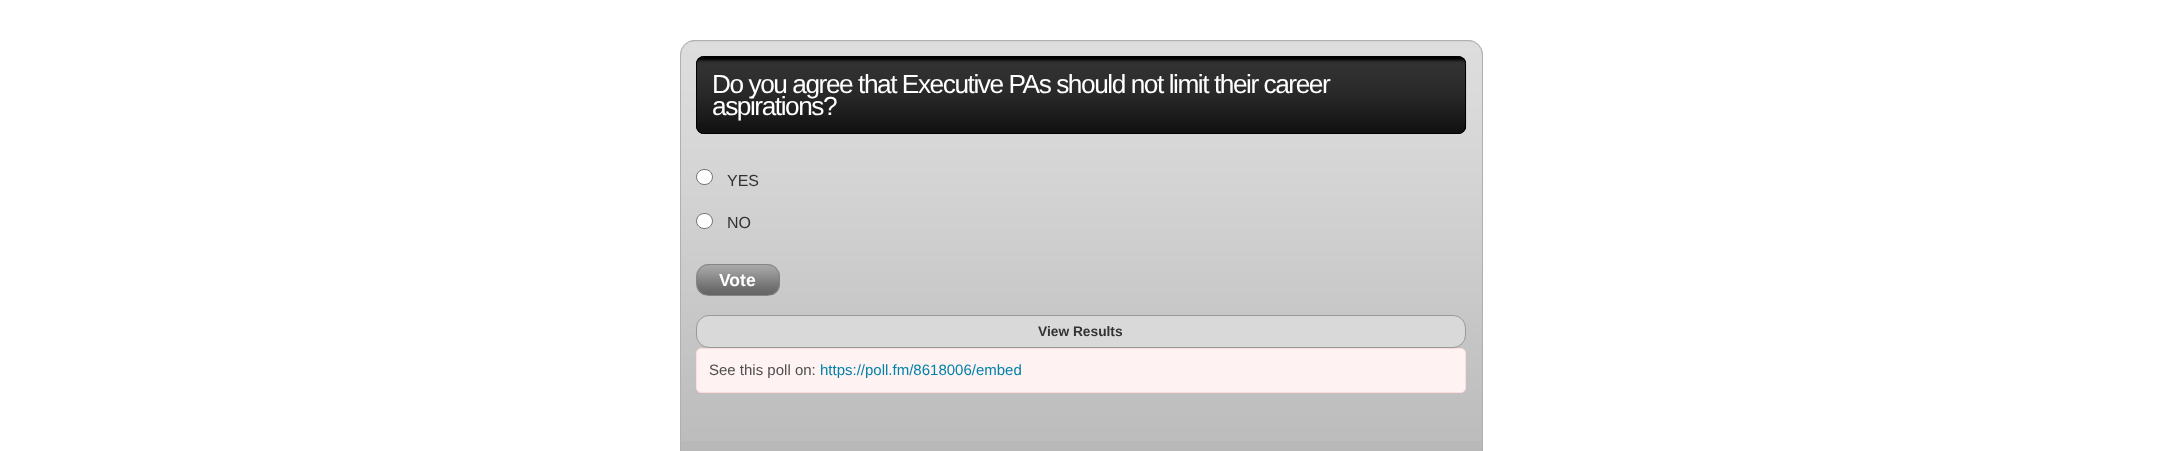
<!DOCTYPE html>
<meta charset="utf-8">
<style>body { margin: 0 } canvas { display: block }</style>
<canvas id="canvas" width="2158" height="451"></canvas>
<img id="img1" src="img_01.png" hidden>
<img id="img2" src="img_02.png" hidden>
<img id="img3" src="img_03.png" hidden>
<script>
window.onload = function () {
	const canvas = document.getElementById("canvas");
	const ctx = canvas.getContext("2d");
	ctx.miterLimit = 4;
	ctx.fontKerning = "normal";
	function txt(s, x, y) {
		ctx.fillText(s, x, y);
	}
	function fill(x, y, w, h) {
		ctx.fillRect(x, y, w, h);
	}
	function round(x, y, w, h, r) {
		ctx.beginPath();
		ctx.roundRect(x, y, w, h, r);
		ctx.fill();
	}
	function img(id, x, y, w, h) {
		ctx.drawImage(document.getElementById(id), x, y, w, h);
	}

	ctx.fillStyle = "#FFFFFF";
	fill(0, 0, 2158, 451);
	ctx.fillStyle = "#B8B8B8";
	round(680, 40, 803, 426, 15);
	img("img1", 680, 41, 803, 400);
	ctx.beginPath();
	ctx.roundRect(680.5, 40.5, 802, 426, 14.5);
	ctx.strokeStyle = "#B0B0B0";
	ctx.stroke();
	ctx.fillStyle = "#000000";
	round(696, 56, 770, 78, 8);
	img("img2", 696, 57, 771, 77);
	ctx.beginPath();
	ctx.roundRect(696.5, 56.5, 769, 77, 7.5);
	ctx.strokeStyle = "#000000";
	ctx.stroke();
	ctx.fillStyle = "#FFFFFF";
	ctx.beginPath();
	ctx.roundRect(696.5, 169.5, 16, 15, 7.5);
	ctx.fill();
	ctx.strokeStyle = "#767676";
	ctx.stroke();
	ctx.beginPath();
	ctx.roundRect(696.5, 213.5, 16, 15, 7.5);
	ctx.fill();
	ctx.stroke();
	img("img3", 696, 264, 84, 31);
	ctx.beginPath();
	ctx.roundRect(696.5, 264.5, 83, 31, 12.5);
	ctx.strokeStyle = "#848484";
	ctx.stroke();
	ctx.fillStyle = "#D9D9D9";
	ctx.beginPath();
	ctx.roundRect(696.5, 315.5, 769, 32, 12.5);
	ctx.fill();
	ctx.strokeStyle = "#999999";
	ctx.stroke();
	ctx.fillStyle = "#FFF2F2";
	ctx.beginPath();
	ctx.roundRect(696.5, 348.5, 769, 44, 4.5);
	ctx.fill();
	ctx.strokeStyle = "#FFDCDC";
	ctx.stroke();
	ctx.letterSpacing = "-1.45px";
	ctx.font = "26.25px Liberation Sans";
	ctx.fillStyle = "#FFFFFF";
	txt("Do you agree that Executive PAs should not limit their career", 712, 93);
	txt("aspirations?", 712, 115);
	ctx.letterSpacing = "0px";
	ctx.font = "16px Liberation Sans";
	ctx.fillStyle = "#333333";
	txt("YES", 727, 186);
	txt("NO", 727, 228);
	ctx.font = "bold 17.5px Liberation Sans";
	ctx.fillStyle = "#FFFFFF";
	txt("Vote", 719, 286);
	ctx.font = "bold 13.75px Liberation Sans";
	ctx.fillStyle = "#333333";
	txt("View Results", 1038, 336);
	ctx.font = "15px Liberation Sans";
	ctx.fillStyle = "#4E4E4E";
	txt("See this poll on:", 709, 375);
	ctx.fillStyle = "#0182A8";
	txt("https://poll.fm/8618006/embed", 820, 375);
};
</script>
